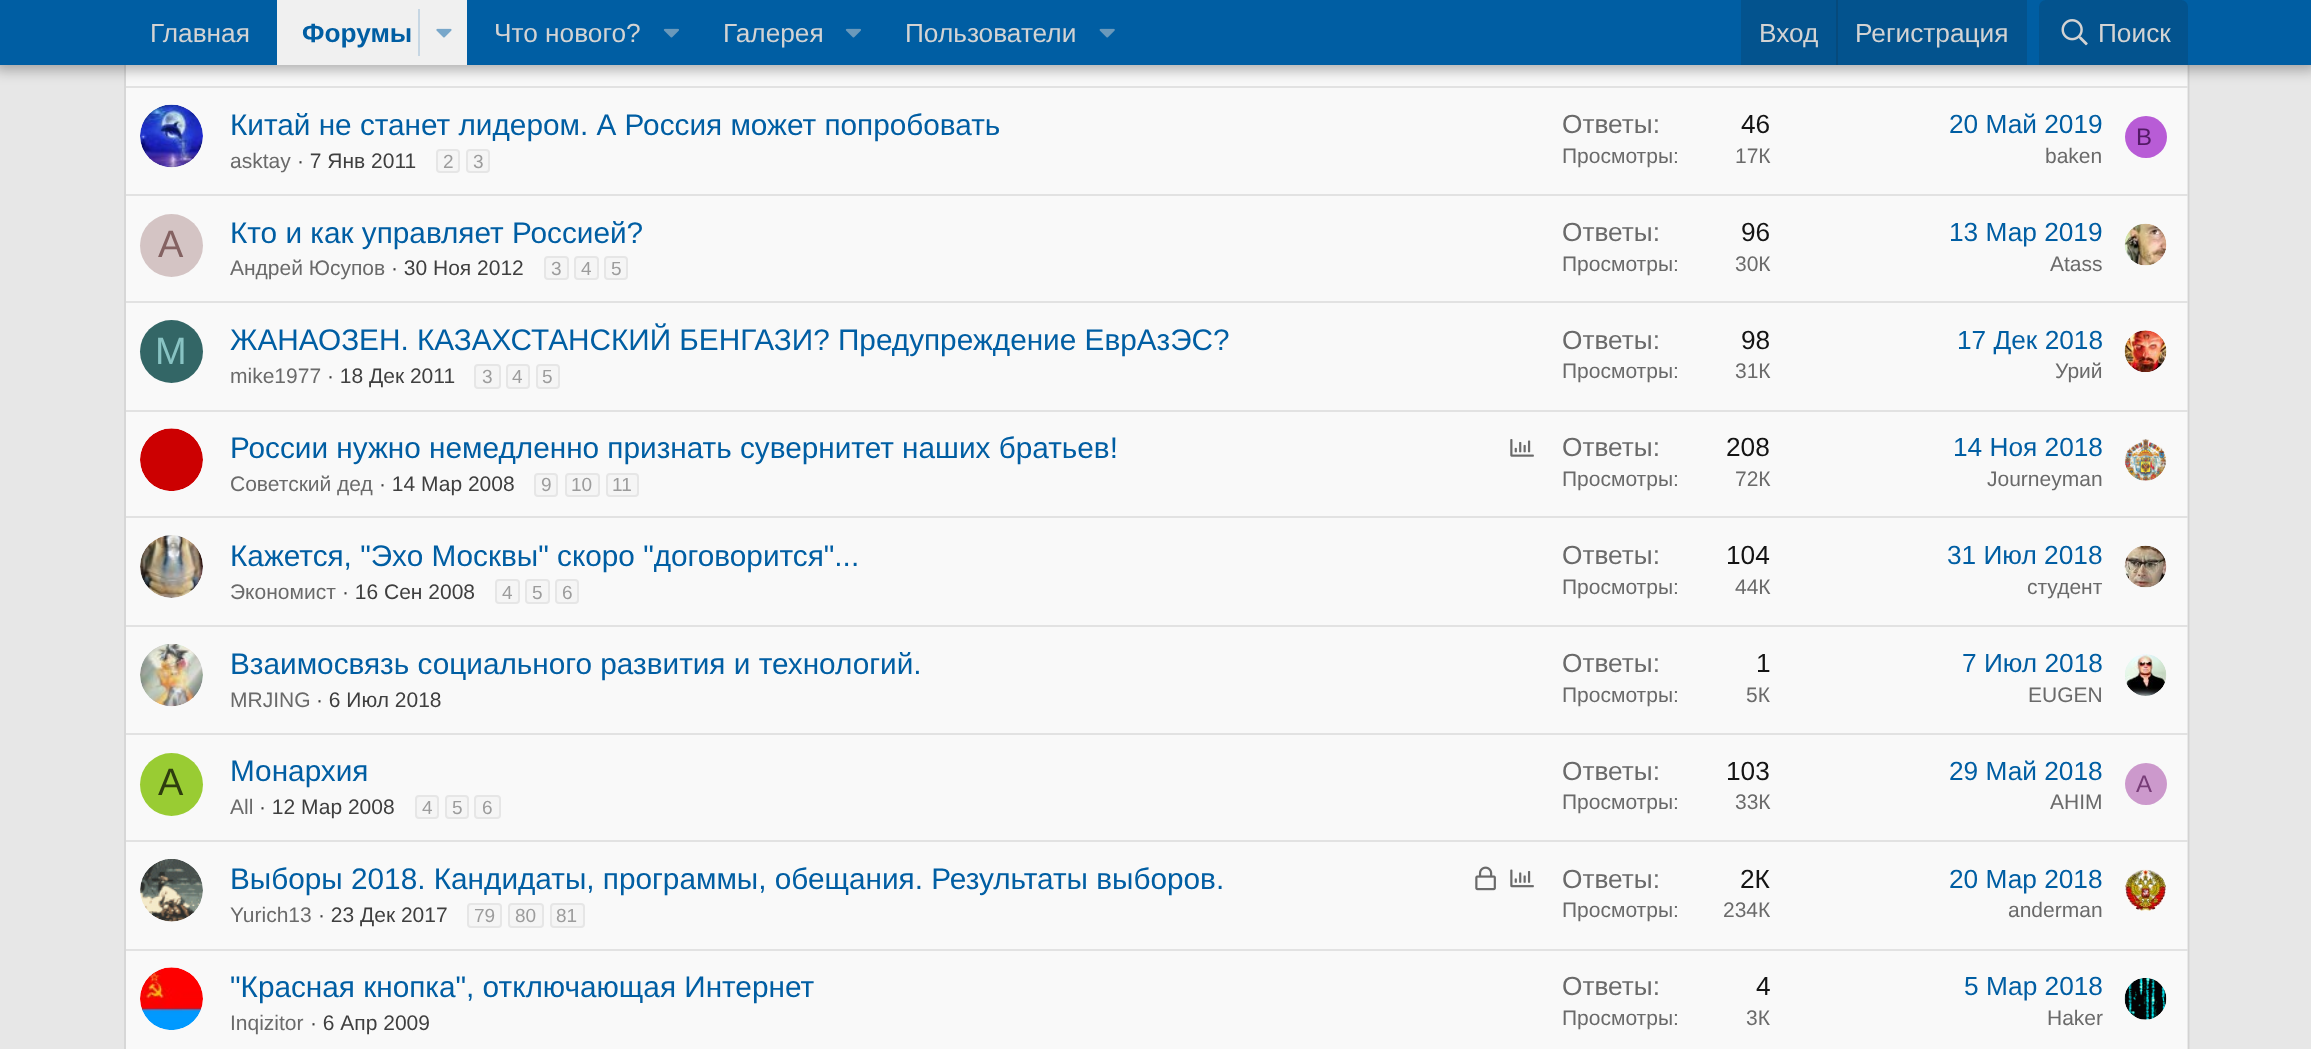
<!DOCTYPE html>
<meta charset="utf-8">
<style>body { margin: 0 } canvas { display: block }</style>
<canvas id="canvas" width="2311" height="1049"></canvas>
<img id="img1" src="img_01.png" hidden>
<img id="img2" src="img_02.png" hidden>
<img id="img3" src="img_03.png" hidden>
<img id="img4" src="img_04.png" hidden>
<img id="img5" src="img_05.png" hidden>
<img id="img6" src="img_06.png" hidden>
<img id="img7" src="img_07.png" hidden>
<img id="img8" src="img_08.png" hidden>
<img id="img9" src="img_09.png" hidden>
<img id="img10" src="img_10.png" hidden>
<img id="img11" src="img_11.png" hidden>
<img id="img12" src="img_12.png" hidden>
<img id="img13" src="img_13.png" hidden>
<img id="img14" src="img_14.png" hidden>
<img id="img15" src="img_15.png" hidden>
<img id="img16" src="img_16.png" hidden>
<img id="img17" src="img_17.png" hidden>
<img id="img18" src="img_18.png" hidden>
<img id="img19" src="img_19.png" hidden>
<img id="img20" src="img_20.png" hidden>
<script>
window.onload = function () {
	const canvas = document.getElementById("canvas");
	const ctx = canvas.getContext("2d");
	ctx.miterLimit = 4;
	ctx.fontKerning = "normal";
	function txt(s, x, y) {
		ctx.fillText(s, x, y);
	}
	function fill(x, y, w, h) {
		ctx.fillRect(x, y, w, h);
	}
	function img(id, x, y, w, h) {
		ctx.drawImage(document.getElementById(id), x, y, w, h);
	}

	ctx.fillStyle = "#E7E7E7";
	fill(0, 0, 2311, 1049);
	ctx.fillStyle = "#F9F9F9";
	fill(124, 65, 2064, 984);
	ctx.beginPath();
	ctx.moveTo(2186.5, -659);
	ctx.bezierCurveTo(2187.5, -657.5, 2188.5, -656, 2188.5, -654.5);
	ctx.lineTo(2188.5, 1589);
	ctx.bezierCurveTo(2188.5, 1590.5, 2187.5, 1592, 2186.5, 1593.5);
	ctx.strokeStyle = "#D3D3D3";
	ctx.lineWidth = 1.8;
	ctx.stroke();
	ctx.beginPath();
	ctx.moveTo(127, 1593.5);
	ctx.bezierCurveTo(126, 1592, 125, 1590.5, 125, 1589);
	ctx.lineTo(125, -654.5);
	ctx.bezierCurveTo(125, -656, 126, -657.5, 127, -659);
	ctx.stroke();
	ctx.fillStyle = "#E2E2E2";
	fill(126, 86, 2062, 2);
	ctx.fillStyle = "rgba(0, 0, 0, 0.3)";
	ctx.filter = "blur(7px)";
	ctx.beginPath();
	ctx.rect(-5, -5, 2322, 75);
	ctx.fill();
	ctx.filter = "none";
	ctx.fillStyle = "#005EA3";
	fill(0, 0, 2311, 65);
	ctx.fillStyle = "#F0F0F0";
	fill(277, 0, 190, 65);
	ctx.fillStyle = "#C6D6E3";
	fill(418, 9, 2, 47);
	img("img1", 436, 28, 16, 10);
	img("img2", 663, 28, 16, 10);
	img("img2", 845, 28, 16, 10);
	img("img3", 1099, 28, 16, 10);
	ctx.fillStyle = "#03538E";
	fill(1741, 0, 286, 65);
	ctx.fillStyle = "#064A7C";
	fill(1836, 0, 2, 65);
	ctx.fillStyle = "#03538E";
	ctx.beginPath();
	ctx.roundRect(2039, 0, 149, 65, [7, 7, 0, 0]);
	ctx.fill();
	img("img4", 2061, 19, 27, 27);
	img("img5", 140, 104, 63, 64);
	ctx.fillStyle = "#F5F5F5";
	ctx.beginPath();
	ctx.roundRect(437, 150, 22, 22, 3);
	ctx.fill();
	ctx.strokeStyle = "#E6E6E6";
	ctx.lineWidth = 2;
	ctx.stroke();
	ctx.beginPath();
	ctx.roundRect(467, 150, 22, 22, 3);
	ctx.fill();
	ctx.stroke();
	ctx.fillStyle = "#B85CD6";
	ctx.beginPath();
	ctx.arc(2146, 137, 21, 0, Math.PI * 2);
	ctx.fill();
	ctx.fillStyle = "#E2E2E2";
	fill(126, 194, 2062, 2);
	ctx.fillStyle = "#D4C4C4";
	ctx.beginPath();
	ctx.arc(171.5, 245.5, 31.5, 0, Math.PI * 2);
	ctx.fill();
	ctx.fillStyle = "#F5F5F5";
	ctx.beginPath();
	ctx.roundRect(545, 257, 23, 22, 3);
	ctx.fill();
	ctx.stroke();
	ctx.beginPath();
	ctx.roundRect(575, 257, 23, 22, 3);
	ctx.fill();
	ctx.stroke();
	ctx.beginPath();
	ctx.roundRect(605, 257, 22, 22, 3);
	ctx.fill();
	ctx.stroke();
	img("img6", 2124, 223, 43, 43);
	ctx.fillStyle = "#E2E2E2";
	fill(126, 301, 2062, 2);
	ctx.fillStyle = "#336666";
	ctx.beginPath();
	ctx.arc(171.5, 351.5, 31.5, 0, Math.PI * 2);
	ctx.fill();
	ctx.fillStyle = "#F5F5F5";
	ctx.beginPath();
	ctx.roundRect(475, 365, 25, 23, 3);
	ctx.fill();
	ctx.stroke();
	ctx.beginPath();
	ctx.roundRect(507, 365, 22, 23, 3);
	ctx.fill();
	ctx.stroke();
	ctx.beginPath();
	ctx.roundRect(537, 365, 22, 23, 3);
	ctx.fill();
	ctx.stroke();
	img("img7", 2124, 330, 43, 42);
	ctx.fillStyle = "#E2E2E2";
	fill(126, 410, 2062, 2);
	img("img8", 140, 428, 63, 63);
	img("img9", 1510, 439, 24, 18);
	ctx.fillStyle = "#F5F5F5";
	ctx.beginPath();
	ctx.roundRect(535, 474, 22, 22, 3);
	ctx.fill();
	ctx.stroke();
	ctx.beginPath();
	ctx.roundRect(566, 474, 33, 22, 3);
	ctx.fill();
	ctx.stroke();
	ctx.beginPath();
	ctx.roundRect(607, 474, 31, 22, 3);
	ctx.fill();
	ctx.stroke();
	img("img10", 2124, 439, 43, 42);
	ctx.fillStyle = "#E2E2E2";
	fill(126, 516, 2062, 2);
	img("img11", 140, 535, 63, 63);
	ctx.fillStyle = "#F5F5F5";
	ctx.beginPath();
	ctx.roundRect(496, 580, 23, 23, 3);
	ctx.fill();
	ctx.stroke();
	ctx.beginPath();
	ctx.roundRect(526, 580, 23, 23, 3);
	ctx.fill();
	ctx.stroke();
	ctx.beginPath();
	ctx.roundRect(556, 580, 22, 23, 3);
	ctx.fill();
	ctx.stroke();
	img("img12", 2124, 545, 43, 43);
	ctx.fillStyle = "#E2E2E2";
	fill(126, 625, 2062, 2);
	img("img13", 140, 644, 63, 63);
	img("img14", 2125, 654, 42, 42);
	fill(126, 733, 2062, 2);
	ctx.fillStyle = "#99CC33";
	ctx.beginPath();
	ctx.arc(171.5, 784.5, 31.5, 0, Math.PI * 2);
	ctx.fill();
	ctx.fillStyle = "#F5F5F5";
	ctx.beginPath();
	ctx.roundRect(416, 796, 22, 22, 3);
	ctx.fill();
	ctx.stroke();
	ctx.beginPath();
	ctx.roundRect(446, 796, 22, 22, 3);
	ctx.fill();
	ctx.stroke();
	ctx.beginPath();
	ctx.roundRect(475, 796, 25, 22, 3);
	ctx.fill();
	ctx.stroke();
	ctx.fillStyle = "#CC99CC";
	ctx.beginPath();
	ctx.arc(2146, 784, 21, 0, Math.PI * 2);
	ctx.fill();
	ctx.fillStyle = "#E2E2E2";
	fill(126, 840, 2062, 2);
	img("img15", 140, 859, 63, 63);
	img("img16", 1475, 866, 21, 25);
	img("img17", 1510, 869, 24, 19);
	ctx.fillStyle = "#F5F5F5";
	ctx.beginPath();
	ctx.roundRect(468, 904, 33, 23, 3);
	ctx.fill();
	ctx.stroke();
	ctx.beginPath();
	ctx.roundRect(509, 904, 34, 23, 3);
	ctx.fill();
	ctx.stroke();
	ctx.beginPath();
	ctx.roundRect(551, 904, 33, 23, 3);
	ctx.fill();
	ctx.stroke();
	img("img18", 2125, 869, 41, 42);
	ctx.fillStyle = "#E2E2E2";
	fill(126, 949, 2062, 2);
	img("img19", 140, 967, 63, 63);
	img("img20", 2124, 978, 43, 42);
	ctx.font = "26.25px Liberation Sans";
	ctx.fillStyle = "#D3D3D3";
	txt("Главная", 150, 42);
	ctx.font = "bold 26.25px Liberation Sans";
	ctx.fillStyle = "#005EA3";
	txt("Форумы", 302, 42);
	ctx.font = "26.25px Liberation Sans";
	ctx.fillStyle = "#D3D3D3";
	txt("Что нового?", 494, 42);
	txt("Галерея", 723, 42);
	txt("Пользователи", 905, 42);
	txt("Вход", 1759, 42);
	txt("Регистрация", 1855, 42);
	txt("Поиск", 2098, 42);
	ctx.font = "29.75px Liberation Sans";
	ctx.fillStyle = "#005EA3";
	txt("Китай не станет лидером. А Россия может попробовать", 230, 135);
	ctx.font = "21px Liberation Sans";
	ctx.fillStyle = "#6A6A6A";
	txt("asktay", 230, 168);
	ctx.fillStyle = "#3F3F3F";
	txt("· 7 Янв 2011", 297, 168);
	ctx.font = "19px Liberation Sans";
	ctx.fillStyle = "#9C9C9C";
	txt("2", 443, 168);
	txt("3", 473, 168);
	ctx.font = "26.25px Liberation Sans";
	ctx.fillStyle = "#6A6A6A";
	txt("Ответы:", 1562, 133);
	ctx.fillStyle = "#141414";
	txt("46", 1741, 133);
	ctx.font = "21px Liberation Sans";
	ctx.fillStyle = "#6A6A6A";
	txt("Просмотры:", 1562, 163);
	txt("17К", 1735, 163);
	ctx.font = "26.25px Liberation Sans";
	ctx.fillStyle = "#005EA3";
	txt("20 Май 2019", 1949, 133);
	ctx.font = "21px Liberation Sans";
	ctx.fillStyle = "#6A6A6A";
	txt("baken", 2045, 163);
	ctx.font = "24px Liberation Sans";
	ctx.fillStyle = "#531A66";
	txt("B", 2136, 145);
	ctx.font = "38px Liberation Sans";
	ctx.fillStyle = "#846262";
	txt("А", 158, 257);
	ctx.font = "29.75px Liberation Sans";
	ctx.fillStyle = "#005EA3";
	txt("Кто и как управляет Россией?", 230, 243);
	ctx.font = "21px Liberation Sans";
	ctx.fillStyle = "#6A6A6A";
	txt("Андрей Юсупов", 230, 275);
	ctx.fillStyle = "#3F3F3F";
	txt("· 30 Ноя 2012", 391, 275);
	ctx.font = "19px Liberation Sans";
	ctx.fillStyle = "#9C9C9C";
	txt("3", 551, 275);
	txt("4", 581, 275);
	txt("5", 611, 275);
	ctx.font = "26.25px Liberation Sans";
	ctx.fillStyle = "#6A6A6A";
	txt("Ответы:", 1562, 241);
	ctx.fillStyle = "#141414";
	txt("96", 1741, 241);
	ctx.font = "21px Liberation Sans";
	ctx.fillStyle = "#6A6A6A";
	txt("Просмотры:", 1562, 271);
	txt("30К", 1735, 271);
	ctx.font = "26.25px Liberation Sans";
	ctx.fillStyle = "#005EA3";
	txt("13 Мар 2019", 1949, 241);
	ctx.font = "21px Liberation Sans";
	ctx.fillStyle = "#6A6A6A";
	txt("Atass", 2050, 271);
	ctx.font = "38px Liberation Sans";
	ctx.fillStyle = "#88C3C3";
	txt("M", 155, 364);
	ctx.font = "29.75px Liberation Sans";
	ctx.fillStyle = "#005EA3";
	txt("ЖАНАОЗЕН. КАЗАХСТАНСКИЙ БЕНГАЗИ? Предупреждение ЕврАзЭС?", 230, 350);
	ctx.font = "21px Liberation Sans";
	ctx.fillStyle = "#6A6A6A";
	txt("mike1977", 230, 383);
	ctx.fillStyle = "#3F3F3F";
	txt("· 18 Дек 2011", 327, 383);
	ctx.font = "19px Liberation Sans";
	ctx.fillStyle = "#9C9C9C";
	txt("3", 482, 383);
	txt("4", 512, 383);
	txt("5", 542, 383);
	ctx.font = "26.25px Liberation Sans";
	ctx.fillStyle = "#6A6A6A";
	txt("Ответы:", 1562, 349);
	ctx.fillStyle = "#141414";
	txt("98", 1741, 349);
	ctx.font = "21px Liberation Sans";
	ctx.fillStyle = "#6A6A6A";
	txt("Просмотры:", 1562, 378);
	txt("31К", 1735, 378);
	ctx.font = "26.25px Liberation Sans";
	ctx.fillStyle = "#005EA3";
	txt("17 Дек 2018", 1957, 349);
	ctx.font = "21px Liberation Sans";
	ctx.fillStyle = "#6A6A6A";
	txt("Урий", 2055, 378);
	ctx.font = "29.75px Liberation Sans";
	ctx.fillStyle = "#005EA3";
	txt("России нужно немедленно признать сувернитет наших братьев!", 230, 458);
	ctx.font = "21px Liberation Sans";
	ctx.fillStyle = "#6A6A6A";
	txt("Советский дед", 230, 491);
	ctx.fillStyle = "#3F3F3F";
	txt("· 14 Мар 2008", 379, 491);
	ctx.font = "19px Liberation Sans";
	ctx.fillStyle = "#9C9C9C";
	txt("9", 541, 491);
	txt("10", 571, 491);
	txt("11", 612, 491);
	ctx.font = "26.25px Liberation Sans";
	ctx.fillStyle = "#6A6A6A";
	txt("Ответы:", 1562, 456);
	ctx.fillStyle = "#141414";
	txt("208", 1726, 456);
	ctx.font = "21px Liberation Sans";
	ctx.fillStyle = "#6A6A6A";
	txt("Просмотры:", 1562, 486);
	txt("72К", 1735, 486);
	ctx.font = "26.25px Liberation Sans";
	ctx.fillStyle = "#005EA3";
	txt("14 Ноя 2018", 1953, 456);
	ctx.font = "21px Liberation Sans";
	ctx.fillStyle = "#6A6A6A";
	txt("Journeyman", 1987, 486);
	ctx.font = "29.75px Liberation Sans";
	ctx.fillStyle = "#005EA3";
	txt("Кажется, \"Эхо Москвы\" скоро \"договорится\"...", 230, 566);
	ctx.font = "21px Liberation Sans";
	ctx.fillStyle = "#6A6A6A";
	txt("Экономист", 230, 599);
	ctx.fillStyle = "#3F3F3F";
	txt("· 16 Сен 2008", 342, 599);
	ctx.font = "19px Liberation Sans";
	ctx.fillStyle = "#9C9C9C";
	txt("4", 502, 599);
	txt("5", 532, 599);
	txt("6", 562, 599);
	ctx.font = "26.25px Liberation Sans";
	ctx.fillStyle = "#6A6A6A";
	txt("Ответы:", 1562, 564);
	ctx.fillStyle = "#141414";
	txt("104", 1726, 564);
	ctx.font = "21px Liberation Sans";
	ctx.fillStyle = "#6A6A6A";
	txt("Просмотры:", 1562, 594);
	txt("44К", 1735, 594);
	ctx.font = "26.25px Liberation Sans";
	ctx.fillStyle = "#005EA3";
	txt("31 Июл 2018", 1947, 564);
	ctx.font = "21px Liberation Sans";
	ctx.fillStyle = "#6A6A6A";
	txt("студент", 2027, 594);
	ctx.font = "29.75px Liberation Sans";
	ctx.fillStyle = "#005EA3";
	txt("Взаимосвязь социального развития и технологий.", 230, 674);
	ctx.font = "21px Liberation Sans";
	ctx.fillStyle = "#6A6A6A";
	txt("MRJING", 230, 707);
	ctx.fillStyle = "#3F3F3F";
	txt("· 6 Июл 2018", 316, 707);
	ctx.font = "26.25px Liberation Sans";
	ctx.fillStyle = "#6A6A6A";
	txt("Ответы:", 1562, 672);
	ctx.fillStyle = "#141414";
	txt("1", 1756, 672);
	ctx.font = "21px Liberation Sans";
	ctx.fillStyle = "#6A6A6A";
	txt("Просмотры:", 1562, 702);
	txt("5К", 1746, 702);
	ctx.font = "26.25px Liberation Sans";
	ctx.fillStyle = "#005EA3";
	txt("7 Июл 2018", 1962, 672);
	ctx.font = "21px Liberation Sans";
	ctx.fillStyle = "#6A6A6A";
	txt("EUGEN", 2028, 702);
	ctx.font = "38px Liberation Sans";
	ctx.fillStyle = "#2E3D0F";
	txt("A", 158, 795);
	ctx.font = "29.75px Liberation Sans";
	ctx.fillStyle = "#005EA3";
	txt("Монархия", 230, 781);
	ctx.font = "21px Liberation Sans";
	ctx.fillStyle = "#6A6A6A";
	txt("All", 230, 814);
	ctx.fillStyle = "#3F3F3F";
	txt("· 12 Мар 2008", 259, 814);
	ctx.font = "19px Liberation Sans";
	ctx.fillStyle = "#9C9C9C";
	txt("4", 422, 814);
	txt("5", 452, 814);
	txt("6", 482, 814);
	ctx.font = "26.25px Liberation Sans";
	ctx.fillStyle = "#6A6A6A";
	txt("Ответы:", 1562, 780);
	ctx.fillStyle = "#141414";
	txt("103", 1726, 780);
	ctx.font = "21px Liberation Sans";
	ctx.fillStyle = "#6A6A6A";
	txt("Просмотры:", 1562, 809);
	txt("33К", 1735, 809);
	ctx.font = "26.25px Liberation Sans";
	ctx.fillStyle = "#005EA3";
	txt("29 Май 2018", 1949, 780);
	ctx.font = "21px Liberation Sans";
	ctx.fillStyle = "#6A6A6A";
	txt("AHIM", 2050, 809);
	ctx.font = "24px Liberation Sans";
	ctx.fillStyle = "#773C77";
	txt("A", 2136, 792);
	ctx.font = "29.75px Liberation Sans";
	ctx.fillStyle = "#005EA3";
	txt("Выборы 2018. Кандидаты, программы, обещания. Результаты выборов.", 230, 889);
	ctx.font = "21px Liberation Sans";
	ctx.fillStyle = "#6A6A6A";
	txt("Yurich13", 230, 922);
	ctx.fillStyle = "#3F3F3F";
	txt("· 23 Дек 2017", 318, 922);
	ctx.font = "19px Liberation Sans";
	ctx.fillStyle = "#9C9C9C";
	txt("79", 474, 922);
	txt("80", 515, 922);
	txt("81", 556, 922);
	ctx.font = "26.25px Liberation Sans";
	ctx.fillStyle = "#6A6A6A";
	txt("Ответы:", 1562, 888);
	ctx.fillStyle = "#141414";
	txt("2К", 1740, 888);
	ctx.font = "21px Liberation Sans";
	ctx.fillStyle = "#6A6A6A";
	txt("Просмотры:", 1562, 917);
	txt("234К", 1723, 917);
	ctx.font = "26.25px Liberation Sans";
	ctx.fillStyle = "#005EA3";
	txt("20 Мар 2018", 1949, 888);
	ctx.font = "21px Liberation Sans";
	ctx.fillStyle = "#6A6A6A";
	txt("anderman", 2008, 917);
	ctx.font = "29.75px Liberation Sans";
	ctx.fillStyle = "#005EA3";
	txt("\"Красная кнопка\", отключающая Интернет", 230, 997);
	ctx.font = "21px Liberation Sans";
	ctx.fillStyle = "#6A6A6A";
	txt("Inqizitor", 230, 1030);
	ctx.fillStyle = "#3F3F3F";
	txt("· 6 Апр 2009", 310, 1030);
	ctx.font = "26.25px Liberation Sans";
	ctx.fillStyle = "#6A6A6A";
	txt("Ответы:", 1562, 995);
	ctx.fillStyle = "#141414";
	txt("4", 1756, 995);
	ctx.font = "21px Liberation Sans";
	ctx.fillStyle = "#6A6A6A";
	txt("Просмотры:", 1562, 1025);
	txt("3К", 1746, 1025);
	ctx.font = "26.25px Liberation Sans";
	ctx.fillStyle = "#005EA3";
	txt("5 Мар 2018", 1964, 995);
	ctx.font = "21px Liberation Sans";
	ctx.fillStyle = "#6A6A6A";
	txt("Haker", 2047, 1025);
};
</script>
